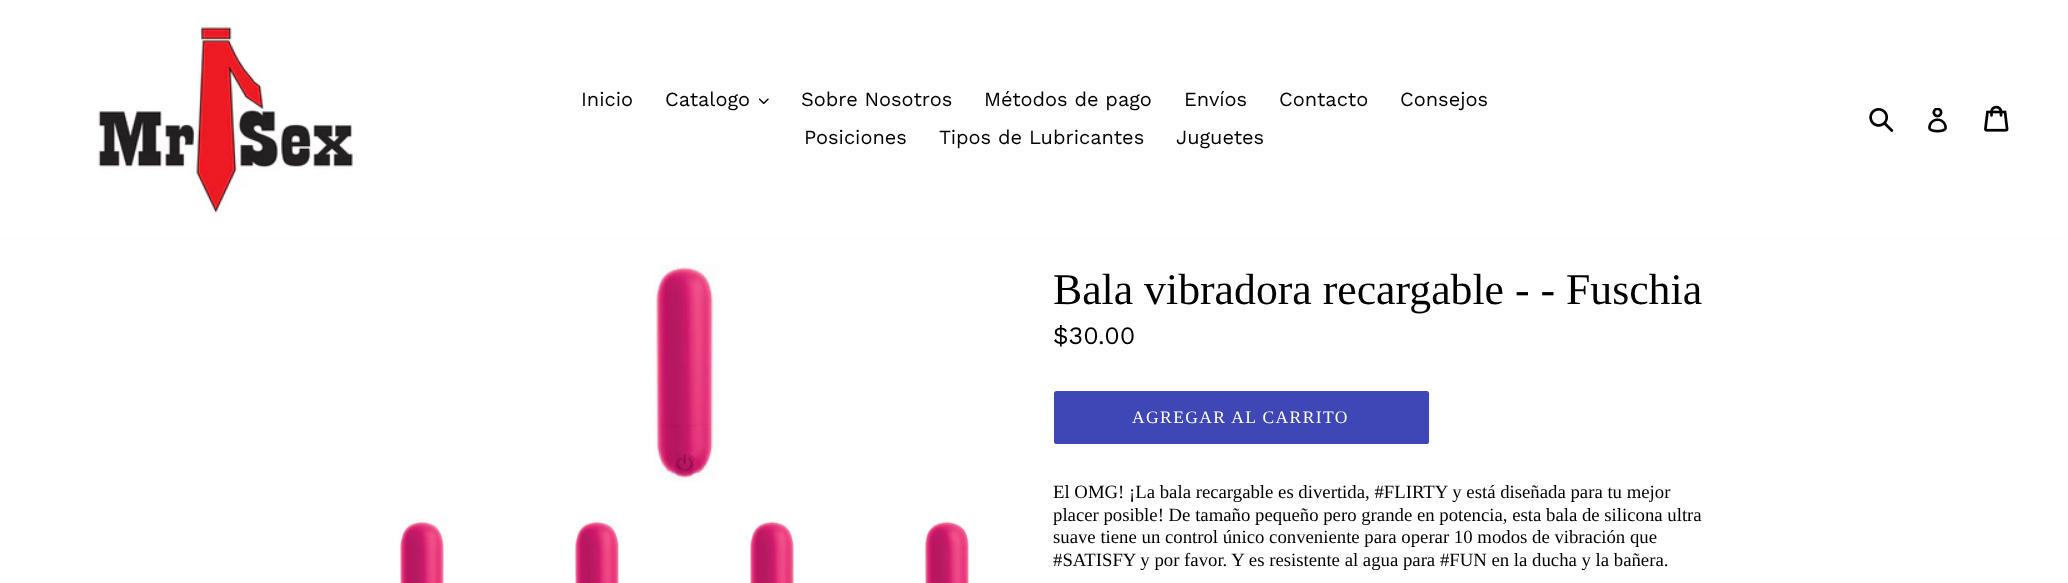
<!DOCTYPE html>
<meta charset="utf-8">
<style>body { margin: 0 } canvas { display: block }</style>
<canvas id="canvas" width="2068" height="583"></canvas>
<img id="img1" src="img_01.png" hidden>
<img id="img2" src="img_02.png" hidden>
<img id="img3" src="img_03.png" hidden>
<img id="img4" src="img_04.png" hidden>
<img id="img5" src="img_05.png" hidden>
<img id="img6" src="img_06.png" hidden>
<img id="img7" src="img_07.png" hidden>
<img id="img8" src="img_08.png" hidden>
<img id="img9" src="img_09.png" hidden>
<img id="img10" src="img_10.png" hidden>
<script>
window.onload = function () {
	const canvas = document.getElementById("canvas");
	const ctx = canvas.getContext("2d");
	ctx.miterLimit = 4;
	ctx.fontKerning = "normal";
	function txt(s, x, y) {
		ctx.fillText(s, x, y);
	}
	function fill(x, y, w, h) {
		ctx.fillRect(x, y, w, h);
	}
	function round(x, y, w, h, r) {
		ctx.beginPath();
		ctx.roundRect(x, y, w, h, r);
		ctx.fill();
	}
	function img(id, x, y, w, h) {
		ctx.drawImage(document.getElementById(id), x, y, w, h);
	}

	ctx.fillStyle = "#FFFFFF";
	fill(0, 0, 2068, 583);
	ctx.fillStyle = "#FBFBFB";
	fill(0, 238, 2068, 1);
	img("img1", 98, 25, 255, 188);
	img("img2", 759, 98, 10, 7);
	img("img3", 1869, 108, 25, 24);
	img("img4", 1928, 108, 19, 25);
	img("img5", 1984, 105, 25, 27);
	img("img6", 653, 264, 66, 218);
	img("img7", 397, 519, 51, 64);
	img("img8", 574, 520, 47, 63);
	img("img9", 750, 521, 46, 62);
	img("img10", 924, 521, 46, 62);
	ctx.fillStyle = "#3E47B5";
	round(1054, 391, 375, 53, 2.5);
	ctx.font = "20px Work Sans";
	ctx.fillStyle = "#000000";
	txt("Inicio", 581, 106);
	txt("Catalogo", 665, 106);
	txt("Sobre Nosotros", 801, 106);
	txt("Métodos de pago", 984, 106);
	txt("Envíos", 1184, 106);
	txt("Contacto", 1279, 106);
	txt("Consejos", 1400, 106);
	txt("Posiciones", 804, 144);
	txt("Tipos de Lubricantes", 939, 144);
	txt("Juguetes", 1176, 144);
	ctx.font = "43.75px Liberation Serif";
	txt("Bala vibradora recargable - - Fuschia", 1053, 304);
	ctx.font = "25px Work Sans";
	txt("$30.00", 1053, 344);
	ctx.letterSpacing = "1.4px";
	ctx.font = "17.5px Liberation Serif";
	ctx.fillStyle = "#FFFFFF";
	txt("AGREGAR AL CARRITO", 1132, 423);
	ctx.letterSpacing = "0px";
	ctx.font = "18.75px Liberation Serif";
	ctx.fillStyle = "#000000";
	txt("El OMG! ¡La bala recargable es divertida, #FLIRTY y está diseñada para tu mejor", 1053, 498);
	txt("placer posible! De tamaño pequeño pero grande en potencia, esta bala de silicona ultra", 1053, 521);
	txt("suave tiene un control único conveniente para operar 10 modos de vibración que", 1053, 543);
	txt("#SATISFY y por favor. Y es resistente al agua para #FUN en la ducha y la bañera.", 1053, 566);
};
</script>
